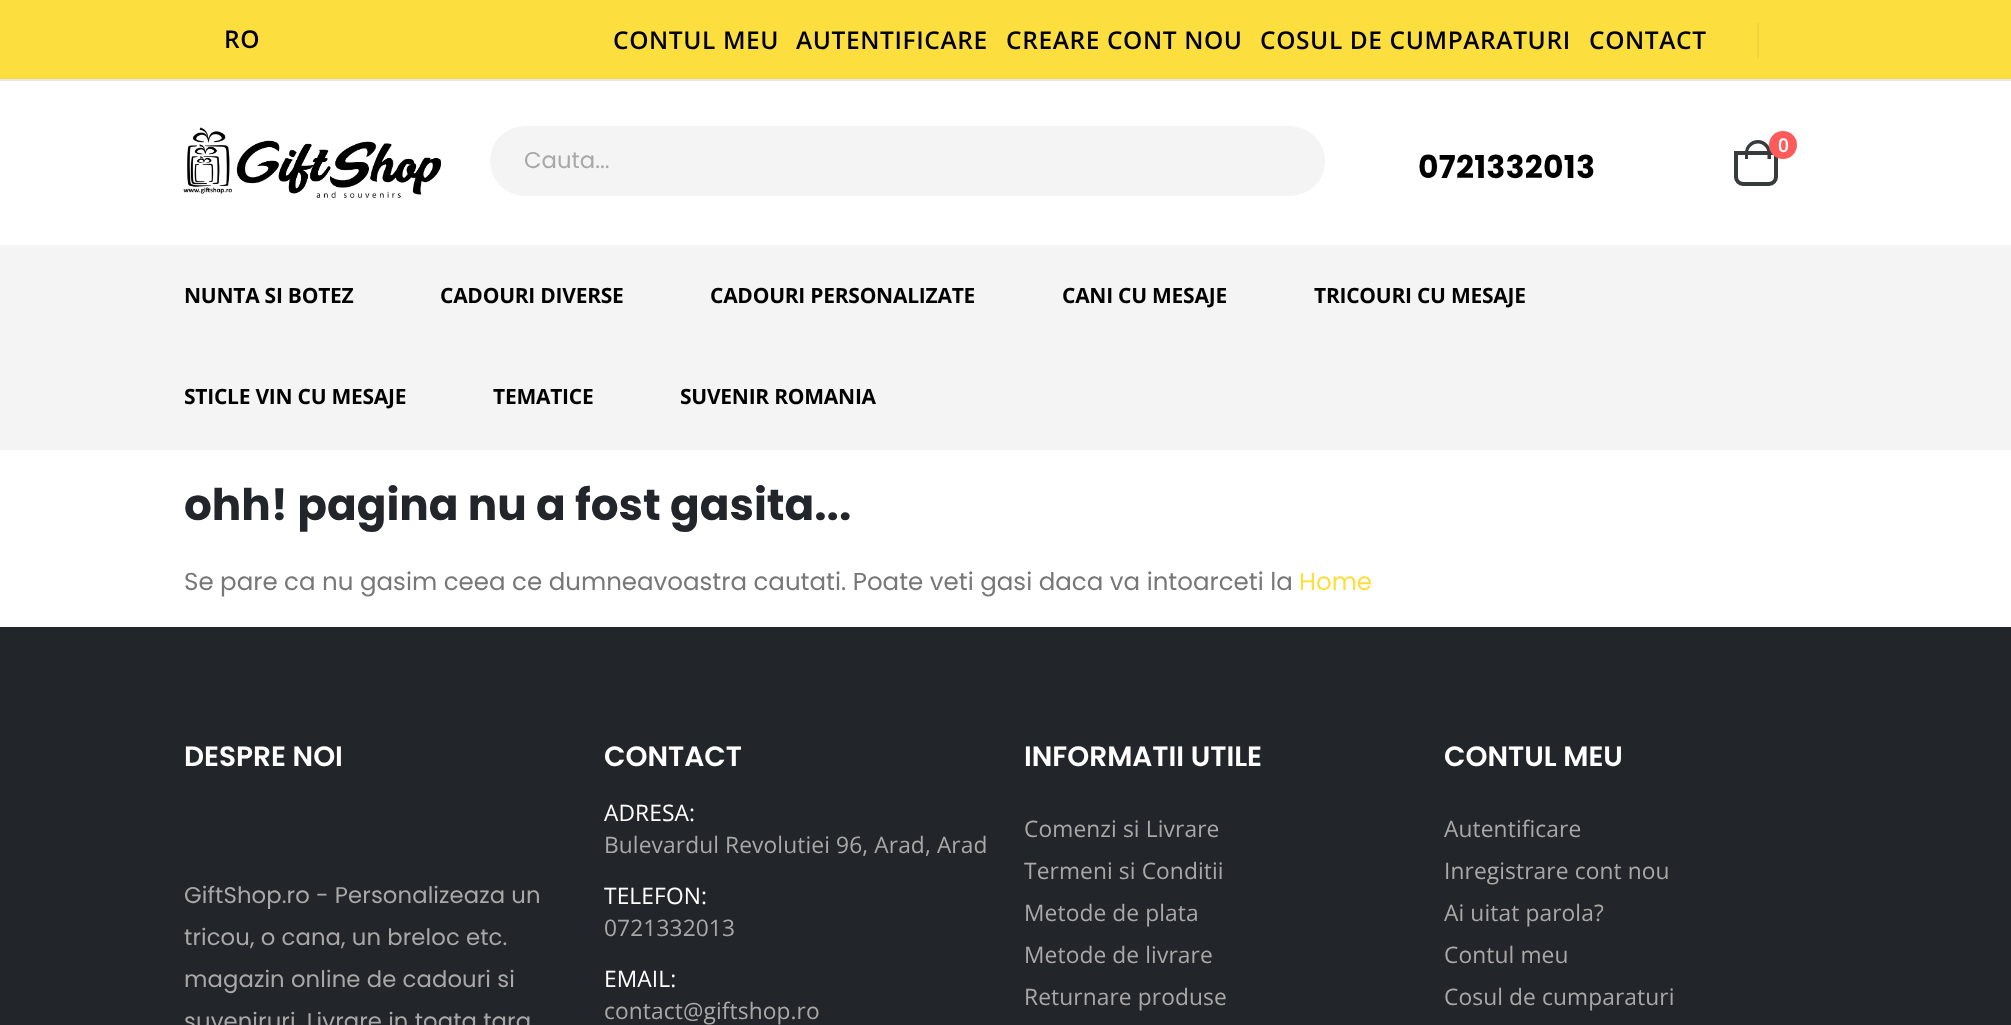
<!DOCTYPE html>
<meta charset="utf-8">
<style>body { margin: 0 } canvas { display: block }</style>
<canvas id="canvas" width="2011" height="1025"></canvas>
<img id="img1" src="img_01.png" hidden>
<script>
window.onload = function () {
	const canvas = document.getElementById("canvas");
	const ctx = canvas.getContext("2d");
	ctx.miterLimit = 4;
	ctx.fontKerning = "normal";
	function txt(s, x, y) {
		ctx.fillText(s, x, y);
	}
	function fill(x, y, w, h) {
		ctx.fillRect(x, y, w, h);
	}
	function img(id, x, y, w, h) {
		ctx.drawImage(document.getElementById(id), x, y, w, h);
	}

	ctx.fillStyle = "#FFFFFF";
	fill(0, 0, 2011, 1025);
	ctx.fillStyle = "#F4F4F4";
	fill(0, 245, 2011, 205);
	ctx.fillStyle = "#FCDE3F";
	fill(0, 0, 2011, 79);
	ctx.fillStyle = "#F2D53C";
	fill(1757, 23, 2, 35);
	ctx.fillStyle = "#E7E7E7";
	fill(0, 79, 2011, 2);
	img("img1", 183, 127, 258, 71);
	ctx.beginPath();
	ctx.roundRect(1736, 153, 40, 31, [0, 0, 7, 7]);
	ctx.strokeStyle = "#383B3E";
	ctx.lineWidth = 4;
	ctx.stroke();
	ctx.fillStyle = "#383B3E";
	ctx.beginPath();
	ctx.moveTo(1758, 140);
	ctx.bezierCurveTo(1765, 140, 1771, 146, 1771, 153);
	ctx.lineTo(1771, 159);
	ctx.lineTo(1745, 159);
	ctx.lineTo(1745, 153);
	ctx.bezierCurveTo(1745, 146, 1750.5, 140, 1758, 140);
	ctx.closePath();
	ctx.moveTo(1758, 143.5);
	ctx.bezierCurveTo(1763, 143.5, 1767.5, 148, 1767.5, 153);
	ctx.lineTo(1767.5, 159);
	ctx.lineTo(1748, 159);
	ctx.lineTo(1748, 153);
	ctx.bezierCurveTo(1748, 148, 1752.5, 143.5, 1758, 143.5);
	ctx.closePath();
	ctx.fill("evenodd");
	ctx.fillStyle = "#FF5B5B";
	ctx.beginPath();
	ctx.arc(1783, 145, 14, 0, Math.PI * 2);
	ctx.fill();
	ctx.fillStyle = "#F4F4F4";
	ctx.beginPath();
	ctx.roundRect(490, 126, 765, 70, [35, 0, 0, 35]);
	ctx.fill();
	ctx.beginPath();
	ctx.roundRect(1255, 126, 70, 70, [0, 35, 35, 0]);
	ctx.fill();
	ctx.fillStyle = "#222529";
	fill(0, 627, 2011, 398);
	ctx.letterSpacing = "0.6px";
	ctx.font = "600 24.5px Open Sans";
	ctx.fillStyle = "#000000";
	txt("RO", 224, 48);
	txt("CONTUL MEU", 613, 49);
	txt("AUTENTIFICARE", 796, 49);
	txt("CREARE CONT NOU", 1006, 49);
	txt("COSUL DE CUMPARATURI", 1260, 49);
	txt("CONTACT", 1589, 49);
	ctx.letterSpacing = "0px";
	ctx.font = "600 19px Open Sans";
	ctx.fillStyle = "#FFFFFF";
	txt("0", 1778, 152);
	ctx.font = "22.75px Poppins";
	ctx.fillStyle = "#A8A8A8";
	txt("Cauta...", 524, 168);
	ctx.letterSpacing = "0.25px";
	ctx.font = "bold 31.5px Poppins";
	ctx.fillStyle = "#000000";
	txt("0721332013", 1418, 178);
	ctx.letterSpacing = "-0.25px";
	ctx.font = "bold 21px Open Sans";
	txt("NUNTA SI BOTEZ", 184, 303);
	txt("CADOURI DIVERSE", 440, 303);
	txt("CADOURI PERSONALIZATE", 710, 303);
	txt("CANI CU MESAJE", 1062, 303);
	txt("TRICOURI CU MESAJE", 1314, 303);
	txt("STICLE VIN CU MESAJE", 184, 404);
	txt("TEMATICE", 493, 404);
	txt("SUVENIR ROMANIA", 680, 404);
	ctx.letterSpacing = "0px";
	ctx.font = "bold 43.75px Poppins";
	ctx.fillStyle = "#222529";
	txt("ohh! pagina nu a fost gasita...", 184, 520);
	ctx.font = "24.5px Poppins";
	ctx.fillStyle = "#777777";
	txt("Se pare ca nu gasim ceea ce dumneavoastra cautati. Poate veti gasi daca va intoarceti la", 184, 590);
	ctx.fillStyle = "#FCDE3F";
	txt("Home", 1299, 590);
	ctx.font = "600 28px Poppins";
	ctx.fillStyle = "#FFFFFF";
	txt("DESPRE NOI", 184, 766);
	ctx.letterSpacing = "0.1px";
	ctx.font = "22.75px Poppins";
	ctx.fillStyle = "#A8A8A8";
	txt("GiftShop.ro - Personalizeaza un", 184, 903);
	txt("tricou, o cana, un breloc etc.", 184, 945);
	txt("magazin online de cadouri si", 184, 987);
	txt("suveniruri. Livrare in toata tara", 184, 1029);
	ctx.letterSpacing = "0px";
	ctx.font = "600 28px Poppins";
	ctx.fillStyle = "#FFFFFF";
	txt("CONTACT", 604, 766);
	ctx.letterSpacing = "0.1px";
	ctx.font = "22.75px Open Sans";
	txt("ADRESA:", 604, 821);
	ctx.fillStyle = "#A8A8A8";
	txt("Bulevardul Revolutiei 96, Arad, Arad", 604, 853);
	ctx.fillStyle = "#FFFFFF";
	txt("TELEFON:", 604, 904);
	ctx.fillStyle = "#A8A8A8";
	txt("0721332013", 604, 936);
	ctx.fillStyle = "#FFFFFF";
	txt("EMAIL:", 604, 987);
	ctx.fillStyle = "#A8A8A8";
	txt("contact@giftshop.ro", 604, 1019);
	ctx.letterSpacing = "0px";
	ctx.font = "600 28px Poppins";
	ctx.fillStyle = "#FFFFFF";
	txt("INFORMATII UTILE", 1024, 766);
	ctx.letterSpacing = "0.1px";
	ctx.font = "22.75px Open Sans";
	ctx.fillStyle = "#A8A8A8";
	txt("Comenzi si Livrare", 1024, 837);
	txt("Termeni si Conditii", 1024, 879);
	txt("Metode de plata", 1024, 921);
	txt("Metode de livrare", 1024, 963);
	txt("Returnare produse", 1024, 1005);
	ctx.letterSpacing = "0px";
	ctx.font = "600 28px Poppins";
	ctx.fillStyle = "#FFFFFF";
	txt("CONTUL MEU", 1444, 766);
	ctx.letterSpacing = "0.1px";
	ctx.font = "22.75px Open Sans";
	ctx.fillStyle = "#A8A8A8";
	txt("Autentificare", 1444, 837);
	txt("Inregistrare cont nou", 1444, 879);
	txt("Ai uitat parola?", 1444, 921);
	txt("Contul meu", 1444, 963);
	txt("Cosul de cumparaturi", 1444, 1005);
};
</script>
